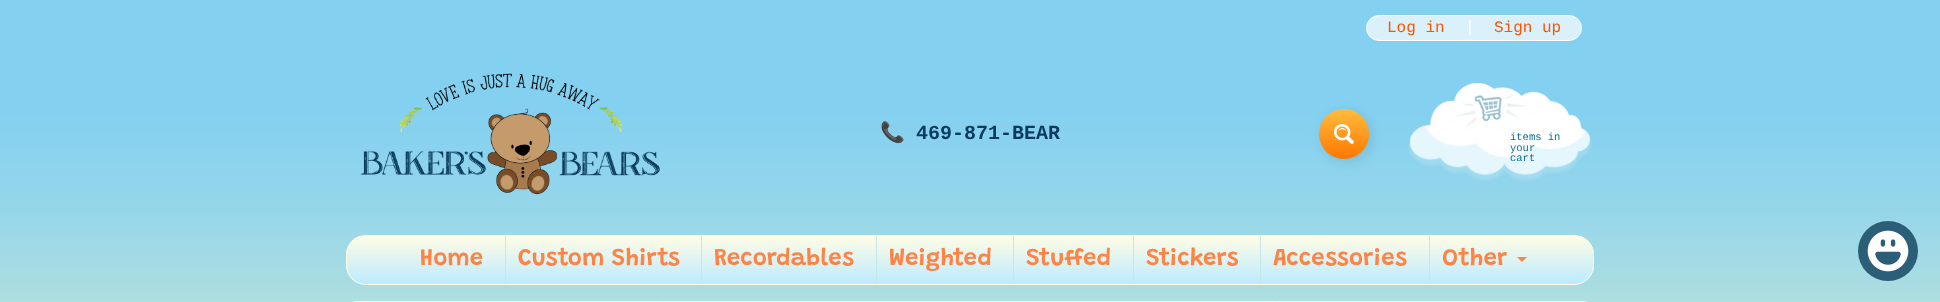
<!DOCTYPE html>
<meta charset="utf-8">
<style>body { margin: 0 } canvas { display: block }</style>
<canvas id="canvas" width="1940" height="302"></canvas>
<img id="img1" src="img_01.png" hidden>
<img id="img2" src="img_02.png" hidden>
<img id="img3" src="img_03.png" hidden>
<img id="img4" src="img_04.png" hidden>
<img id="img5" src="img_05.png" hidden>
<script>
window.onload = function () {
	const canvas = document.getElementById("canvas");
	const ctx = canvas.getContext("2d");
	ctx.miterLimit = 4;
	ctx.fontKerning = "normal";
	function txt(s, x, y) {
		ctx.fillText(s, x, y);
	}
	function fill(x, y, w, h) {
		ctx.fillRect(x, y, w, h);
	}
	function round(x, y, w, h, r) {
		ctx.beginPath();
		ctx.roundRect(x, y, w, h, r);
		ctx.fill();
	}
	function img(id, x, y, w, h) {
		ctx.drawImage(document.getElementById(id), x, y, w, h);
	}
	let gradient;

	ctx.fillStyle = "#FFF9C1";
	fill(0, 0, 1940, 302);
	img("img1", 0, 0, 1940, 302);
	img("img2", 361, 73, 299, 122);
	ctx.fillStyle = "#DAF1FB";
	ctx.beginPath();
	ctx.roundRect(1366.5, 15.5, 215, 25, 12.5);
	ctx.fill();
	ctx.strokeStyle = "#FFFFFF";
	ctx.stroke();
	ctx.fillStyle = "rgba(0, 0, 0, 0.1)";
	ctx.filter = "blur(6px)";
	ctx.beginPath();
	ctx.roundRect(1322, 112, 50, 50, 25);
	ctx.fill();
	ctx.filter = "none";
	gradient = ctx.createLinearGradient(1344, 109, 1344, 159);
	gradient.addColorStop(0, "#FFBD3E");
	gradient.addColorStop(1, "#FF7700");
	ctx.fillStyle = gradient;
	ctx.beginPath();
	ctx.arc(1344, 134, 25, 0, Math.PI * 2);
	ctx.fill();
	img("img3", 1334, 124, 20, 20);
	img("img4", 1408, 83, 184, 99);
	ctx.save();
	ctx.beginPath();
	ctx.roundRect(346, 235, 1248, 50, 20);
	ctx.clip();
	gradient = ctx.createLinearGradient(970, 236, 970, 284);
	gradient.addColorStop(0, "#FFFCE5");
	gradient.addColorStop(1, "#BCEBFF");
	ctx.fillStyle = gradient;
	fill(346, 236, 1248, 48);
	ctx.restore();
	ctx.beginPath();
	ctx.roundRect(346.5, 235.5, 1247, 49, 19.5);
	ctx.strokeStyle = "#FFFCE5";
	ctx.stroke();
	ctx.fillStyle = "#C3E7EA";
	fill(505, 236, 1, 48);
	fill(701, 236, 1, 48);
	fill(876, 236, 1, 48);
	fill(1013, 236, 1, 48);
	fill(1133, 236, 1, 48);
	fill(1260, 236, 1, 48);
	fill(1429, 236, 1, 48);
	ctx.fillStyle = "#FE8345";
	ctx.beginPath();
	ctx.moveTo(1517, 257);
	ctx.lineTo(1527, 257);
	ctx.lineTo(1522, 262);
	ctx.closePath();
	ctx.fill();
	ctx.fillStyle = "#C1E6E8";
	round(346, 301, 1248, 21, 20);
	ctx.beginPath();
	ctx.roundRect(346.5, 301.5, 1247, 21, 19.5);
	ctx.strokeStyle = "rgba(255, 255, 255, 0.7)";
	ctx.stroke();
	ctx.fillStyle = "#2B5F77";
	ctx.beginPath();
	ctx.arc(1888, 251, 30, 0, Math.PI * 2);
	ctx.fill();
	img("img5", 1867, 230, 42, 42);
	ctx.font = "bold 20px Noto Color Emoji";
	ctx.fillStyle = "#083B5F";
	txt("📞", 880, 139);
	ctx.font = "bold 20px Liberation Mono";
	txt("469-871-BEAR", 916, 139);
	ctx.font = "16px Liberation Mono";
	ctx.fillStyle = "#FF5300";
	txt("Log in", 1387, 32);
	ctx.fillStyle = "#FFFFFF";
	txt("|", 1465, 32);
	ctx.fillStyle = "#FF5300";
	txt("Sign up", 1494, 32);
	ctx.font = "10.5px Liberation Mono";
	ctx.fillStyle = "#0A6E99";
	txt("items in", 1510, 140);
	txt("your", 1510, 151);
	txt("cart", 1510, 161);
	ctx.font = "600 24px Grandstander";
	ctx.fillStyle = "#FE8345";
	txt("Home", 420, 265);
	txt("Custom Shirts", 518, 265);
	txt("Recordables", 714, 265);
	txt("Weighted", 889, 265);
	txt("Stuffed", 1026, 265);
	txt("Stickers", 1146, 265);
	txt("Accessories", 1273, 265);
	txt("Other", 1442, 265);
};
</script>
